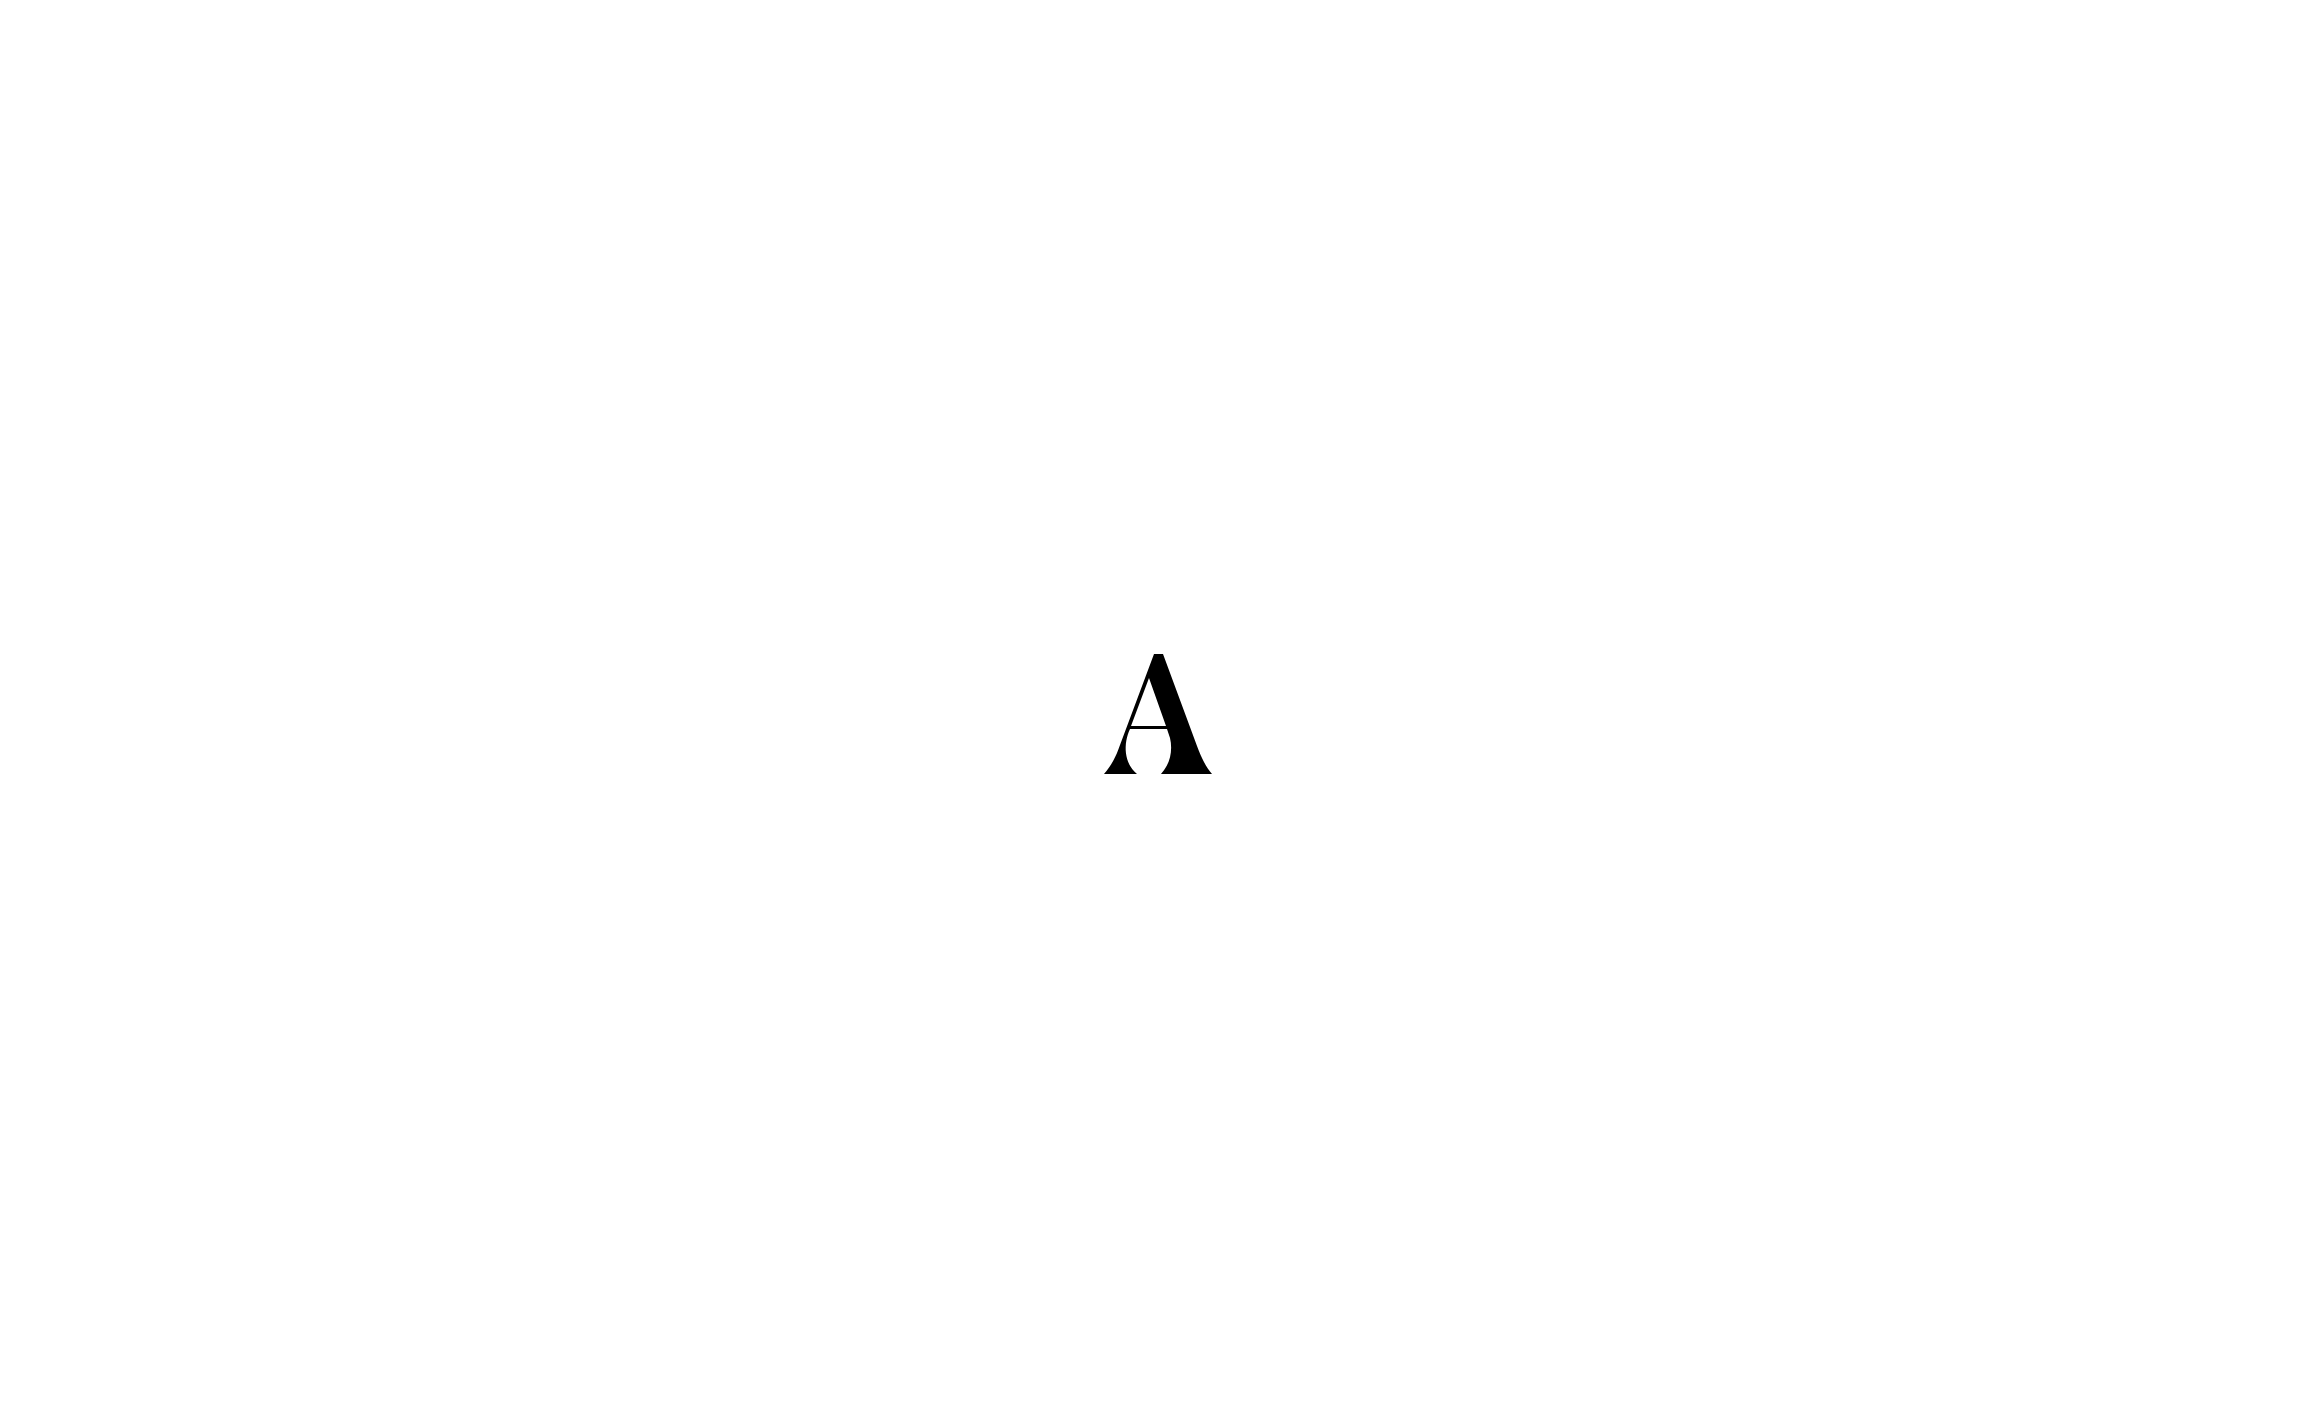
<!DOCTYPE html>
<meta charset="utf-8">
<style>body { margin: 0 } canvas { display: block }</style>
<canvas id="canvas" width="2318" height="1425"></canvas>
<script>
window.onload = function () {
	const canvas = document.getElementById("canvas");
	const ctx = canvas.getContext("2d");
	ctx.miterLimit = 4;
	ctx.fontKerning = "normal";
	function fill(x, y, w, h) {
		ctx.fillRect(x, y, w, h);
	}

	ctx.fillStyle = "#FFFFFF";
	fill(0, 0, 2318, 1425);
	ctx.fillStyle = "#000000";
	ctx.beginPath();
	ctx.moveTo(1134, 774);
	ctx.lineTo(1104, 774);
	ctx.bezierCurveTo(1111, 766, 1116, 757, 1120, 745);
	ctx.lineTo(1154, 654);
	ctx.lineTo(1163, 654);
	ctx.lineTo(1197, 746);
	ctx.bezierCurveTo(1202, 759, 1206, 767, 1212, 774);
	ctx.lineTo(1161, 774);
	ctx.bezierCurveTo(1170, 764, 1173, 751, 1170, 738);
	ctx.lineTo(1167, 729);
	ctx.lineTo(1130, 729);
	ctx.bezierCurveTo(1123, 744, 1124, 763, 1137, 774);
	ctx.closePath();
	ctx.moveTo(1149, 678);
	ctx.lineTo(1131, 726);
	ctx.lineTo(1166, 726);
	ctx.closePath();
	ctx.fill();
};
</script>
